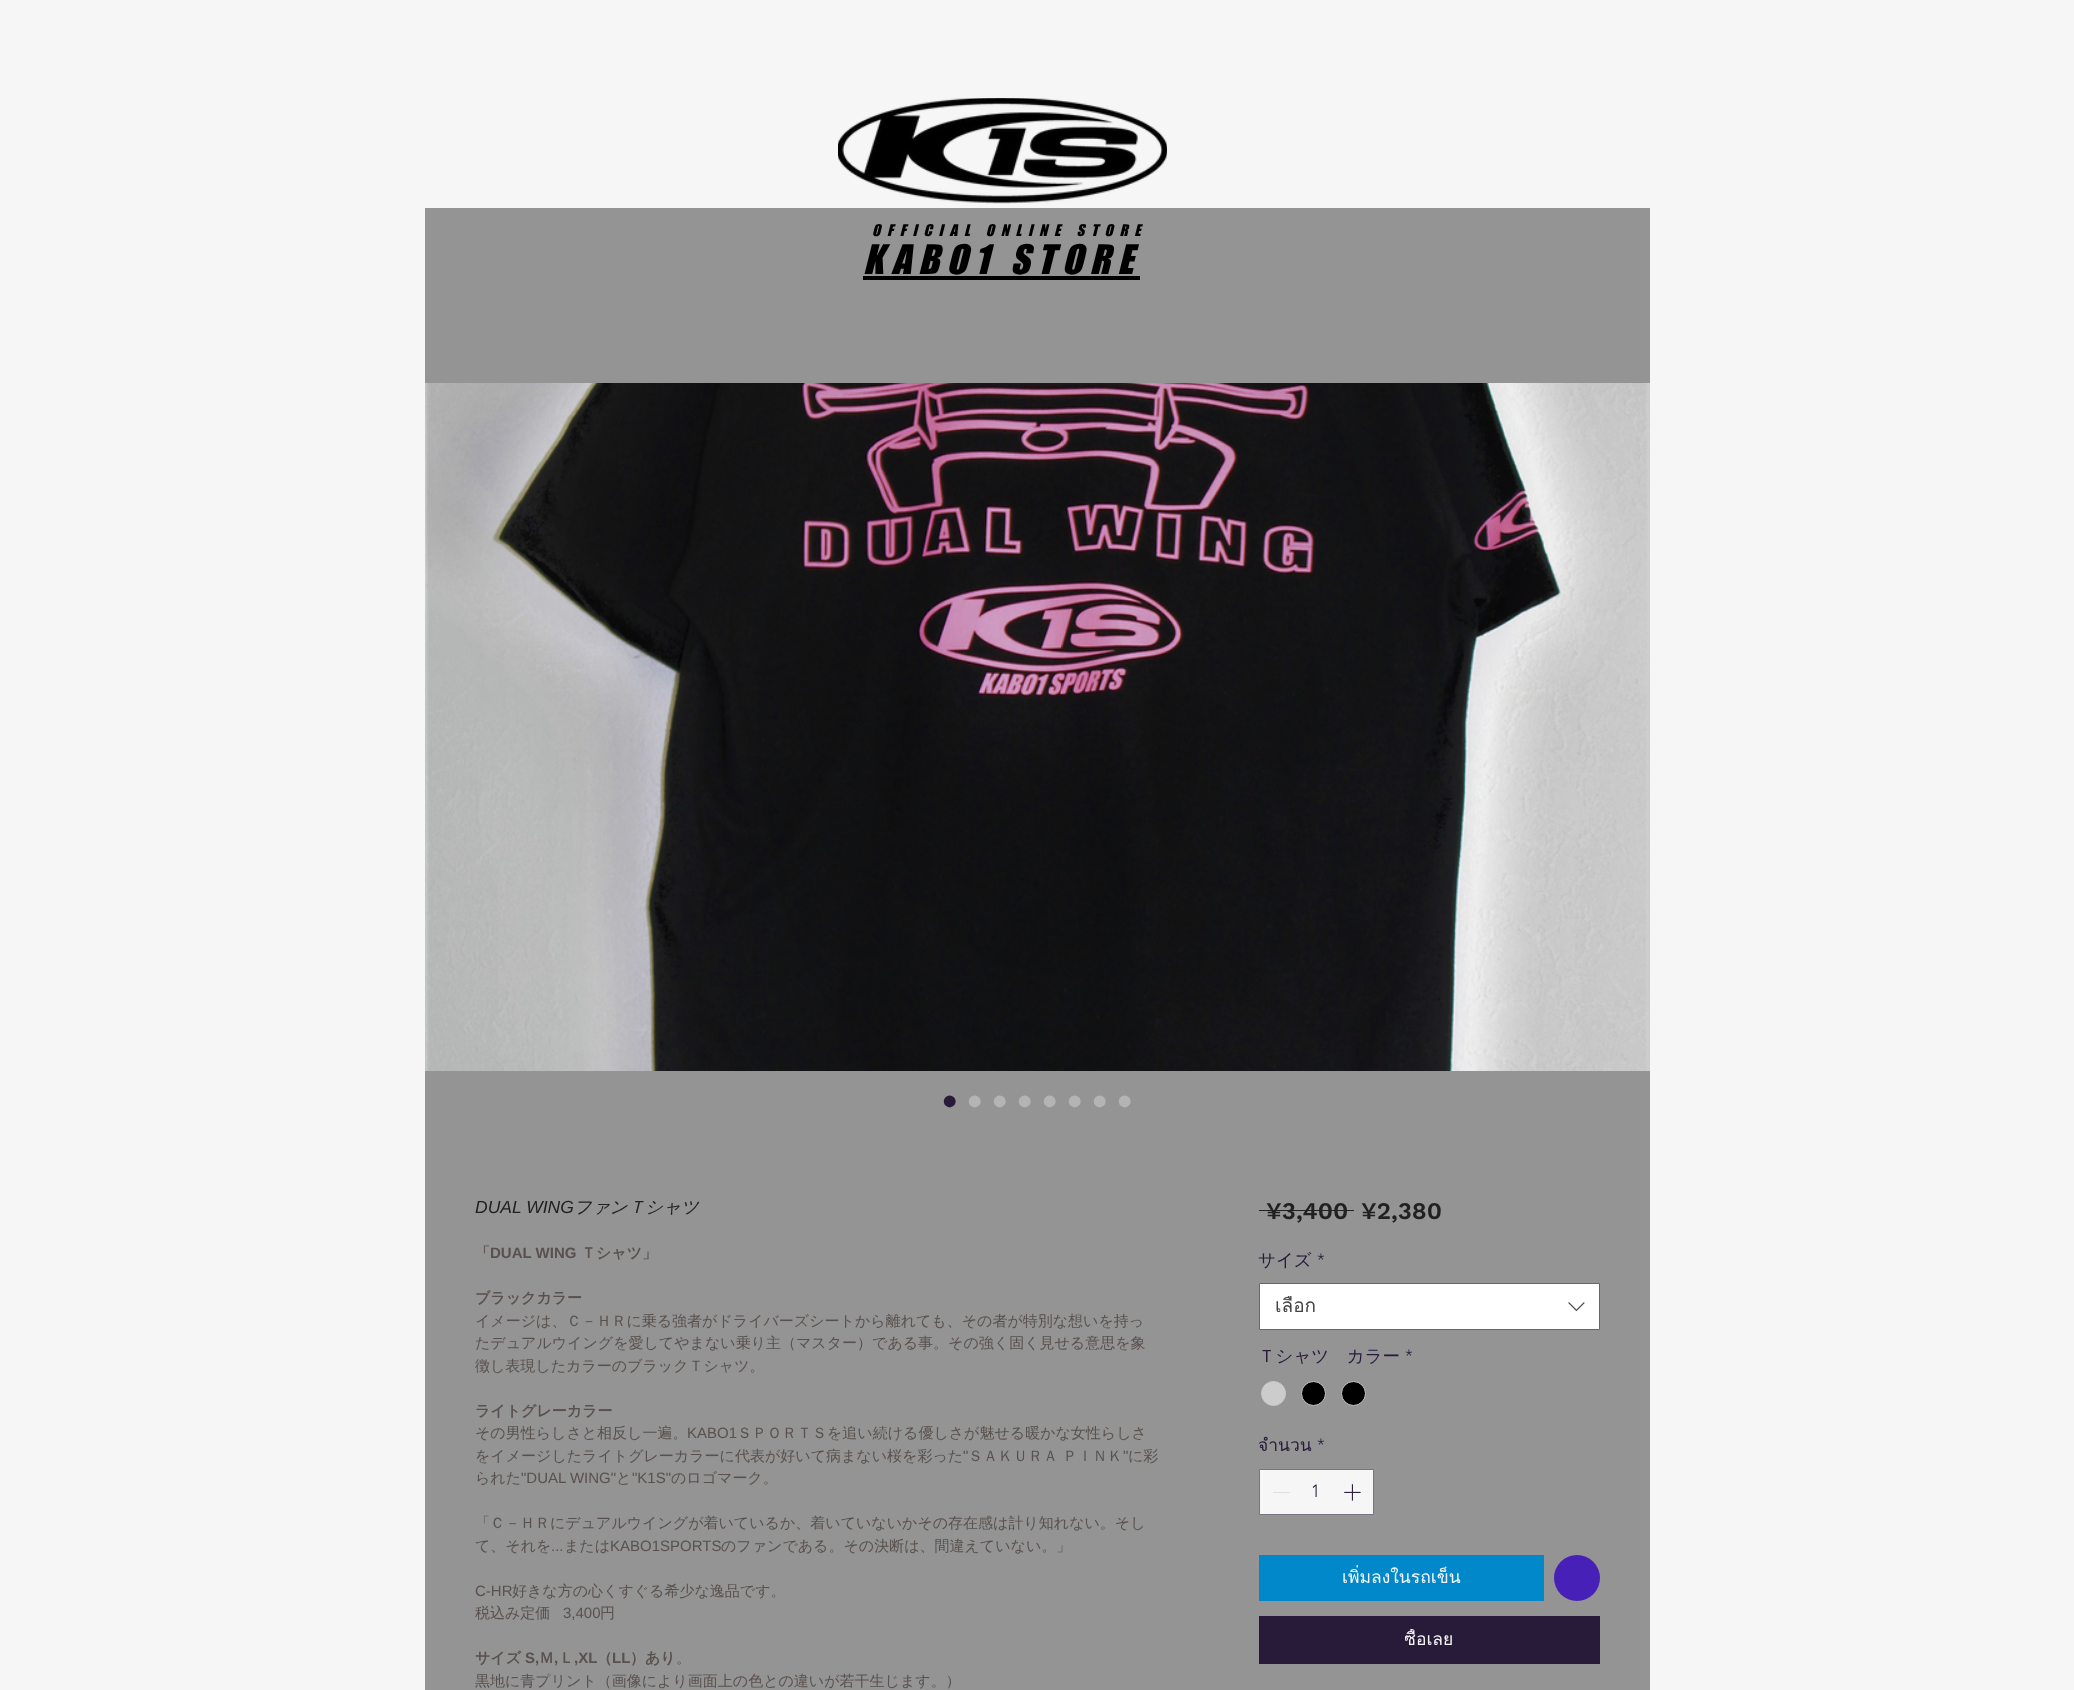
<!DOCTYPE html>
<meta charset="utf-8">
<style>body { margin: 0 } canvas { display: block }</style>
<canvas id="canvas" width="2074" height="1690"></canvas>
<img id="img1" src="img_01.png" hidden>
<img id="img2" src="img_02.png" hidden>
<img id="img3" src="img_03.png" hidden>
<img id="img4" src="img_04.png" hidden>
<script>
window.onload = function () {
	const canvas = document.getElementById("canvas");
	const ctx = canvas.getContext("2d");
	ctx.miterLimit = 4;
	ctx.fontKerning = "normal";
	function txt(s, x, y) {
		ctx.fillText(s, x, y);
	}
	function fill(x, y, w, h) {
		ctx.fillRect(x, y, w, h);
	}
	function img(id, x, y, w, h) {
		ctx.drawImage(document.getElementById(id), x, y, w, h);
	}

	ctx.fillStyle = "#F6F6F6";
	fill(0, 0, 2074, 1690);
	img("img1", 838, 98, 330, 106);
	ctx.fillStyle = "#949494";
	fill(425, 208, 1225, 1482);
	ctx.fillStyle = "#000000";
	fill(863, 276, 277, 4);
	img("img2", 425, 383, 1225, 688);
	ctx.fillStyle = "#212121";
	fill(1259, 1210, 95, 1);
	ctx.fillStyle = "#FFFFFF";
	ctx.beginPath();
	ctx.rect(1259.5, 1283.5, 340, 46);
	ctx.fill();
	ctx.strokeStyle = "#666666";
	ctx.stroke();
	img("img3", 1568, 1302, 17, 10);
	ctx.fillStyle = "#CCCCCC";
	ctx.beginPath();
	ctx.arc(1273.5, 1393.5, 12, 0, Math.PI * 2);
	ctx.fill();
	ctx.strokeStyle = "#C9C9C9";
	ctx.stroke();
	ctx.fillStyle = "#000000";
	ctx.beginPath();
	ctx.arc(1313.5, 1393.5, 12, 0, Math.PI * 2);
	ctx.fill();
	ctx.stroke();
	ctx.beginPath();
	ctx.arc(1353.5, 1393.5, 12, 0, Math.PI * 2);
	ctx.fill();
	ctx.stroke();
	ctx.fillStyle = "#F6F6F6";
	ctx.beginPath();
	ctx.rect(1259.5, 1469.5, 114, 45);
	ctx.fill();
	ctx.strokeStyle = "#7A7285";
	ctx.stroke();
	ctx.fillStyle = "#DFDFDF";
	fill(1273, 1492, 17, 1);
	img("img4", 1344, 1484, 17, 17);
	ctx.fillStyle = "#0088CB";
	fill(1259, 1555, 285, 46);
	ctx.fillStyle = "#4720B7";
	ctx.beginPath();
	ctx.arc(1577, 1578, 23, 0, Math.PI * 2);
	ctx.fill();
	ctx.fillStyle = "#281A39";
	fill(1259, 1616, 341, 48);
	ctx.letterSpacing = "6.75px";
	ctx.font = "italic 15px 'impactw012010'";
	ctx.fillStyle = "#000000";
	txt("OFFICIAL ONLINE STORE", 872, 236);
	ctx.letterSpacing = "7.5px";
	ctx.font = "italic 37.5px 'impactw012010'";
	txt("KABO1 STORE", 863, 274);
	ctx.letterSpacing = "0px";
	ctx.font = "44px Liberation Sans";
	ctx.fillStyle = "#281A39";
	txt("•", 942, 1116);
	ctx.fillStyle = "#B4B4B4";
	txt("•", 967, 1116);
	txt("•", 992, 1116);
	txt("•", 1017, 1116);
	txt("•", 1042, 1116);
	txt("•", 1067, 1116);
	txt("•", 1092, 1116);
	txt("•", 1117, 1116);
	ctx.font = "italic 17.5px Liberation Sans";
	ctx.fillStyle = "#212121";
	txt("DUAL WING", 475, 1213);
	ctx.font = "italic 500 17.5px WenQuanYi Zen Hei";
	txt("ファンＴシャツ", 574, 1213);
	ctx.font = "bold 15px WenQuanYi Zen Hei";
	ctx.fillStyle = "#59514D";
	txt("「", 475, 1258);
	ctx.font = "bold 15px Liberation Sans";
	txt("DUAL WING", 490, 1258);
	ctx.font = "bold 15px WenQuanYi Zen Hei";
	txt("Ｔシャツ」", 581, 1258);
	txt("ブラックカラー", 475, 1303);
	ctx.font = "500 15px WenQuanYi Zen Hei";
	txt("イメージは、Ｃ－ＨＲに乗る強者がドライバーズシートから離れても、その者が特別な想いを持っ", 475, 1326);
	txt("たデュアルウイングを愛してやまない乗り主（マスター）である事。その強く固く見せる意思を象", 475, 1348);
	txt("徴し表現したカラーのブラックＴシャツ。", 475, 1371);
	ctx.font = "bold 15px WenQuanYi Zen Hei";
	txt("ライトグレーカラー", 475, 1416);
	ctx.font = "500 15px WenQuanYi Zen Hei";
	txt("その男性らしさと相反し一遍。", 475, 1438);
	ctx.font = "15px Liberation Sans";
	txt("KABO1", 687, 1438);
	ctx.font = "500 15px WenQuanYi Zen Hei";
	txt("ＳＰＯＲＴＳを追い続ける優しさが魅せる暖かな女性らしさ", 737, 1438);
	txt("をイメージしたライトグレーカラーに代表が好いて病まない桜を彩った", 475, 1461);
	ctx.font = "15px Liberation Sans";
	txt("\"", 963, 1461);
	ctx.font = "500 15px WenQuanYi Zen Hei";
	txt("ＳＡＫＵＲＡ ＰＩＮＫ", 968, 1461);
	ctx.font = "15px Liberation Sans";
	txt("\"", 1123, 1461);
	ctx.font = "500 15px WenQuanYi Zen Hei";
	txt("に彩", 1128, 1461);
	txt("られた", 475, 1483);
	ctx.font = "15px Liberation Sans";
	txt("\"DUAL WING\"", 521, 1483);
	ctx.font = "500 15px WenQuanYi Zen Hei";
	txt("と", 616, 1483);
	ctx.font = "15px Liberation Sans";
	txt("\"K1S\"", 632, 1483);
	ctx.font = "500 15px WenQuanYi Zen Hei";
	txt("のロゴマーク。", 671, 1483);
	txt("「Ｃ－ＨＲにデュアルウイングが着いているか、着いていないかその存在感は計り知れない。そし", 475, 1528);
	txt("て、それを", 475, 1551);
	ctx.font = "15px Liberation Sans";
	txt("...", 551, 1551);
	ctx.font = "500 15px WenQuanYi Zen Hei";
	txt("または", 564, 1551);
	ctx.font = "15px Liberation Sans";
	txt("KABO1SPORTS", 610, 1551);
	ctx.font = "500 15px WenQuanYi Zen Hei";
	txt("のファンである。その決断は、間違えていない。」", 721, 1551);
	ctx.font = "15px Liberation Sans";
	txt("C-HR", 475, 1596);
	ctx.font = "500 15px WenQuanYi Zen Hei";
	txt("好きな方の心くすぐる希少な逸品です。", 512, 1596);
	txt("税込み定価", 475, 1618);
	ctx.font = "15px Liberation Sans";
	txt("3,400", 563, 1618);
	ctx.font = "500 15px WenQuanYi Zen Hei";
	txt("円", 600, 1618);
	ctx.font = "bold 15px WenQuanYi Zen Hei";
	txt("サイズ", 475, 1663);
	ctx.font = "bold 15px Liberation Sans";
	txt("S,", 525, 1663);
	ctx.font = "bold 15px WenQuanYi Zen Hei";
	txt("Ｍ", 539, 1663);
	ctx.font = "bold 15px Liberation Sans";
	txt(",", 554, 1663);
	ctx.font = "bold 15px WenQuanYi Zen Hei";
	txt("Ｌ", 559, 1663);
	ctx.font = "bold 15px Liberation Sans";
	txt(",XL", 574, 1663);
	ctx.font = "bold 15px WenQuanYi Zen Hei";
	txt("（", 597, 1663);
	ctx.font = "bold 15px Liberation Sans";
	txt("LL", 612, 1663);
	ctx.font = "bold 15px WenQuanYi Zen Hei";
	txt("）あり", 630, 1663);
	ctx.font = "500 15px WenQuanYi Zen Hei";
	txt("。", 676, 1663);
	txt("黒地に青プリント（画像により画面上の色との違いが若干生じます。）", 475, 1686);
	ctx.font = "600 24px Work Sans";
	ctx.fillStyle = "#212121";
	txt("¥3,400", 1266, 1219);
	txt("¥2,380", 1361, 1219);
	ctx.font = "500 17.5px WenQuanYi Zen Hei";
	ctx.fillStyle = "#281A39";
	txt("サイズ", 1258, 1266);
	ctx.font = "300 17.5px 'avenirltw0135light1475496'";
	txt("*", 1317, 1266);
	ctx.save();
	ctx.beginPath();
	ctx.rect(1275, 1294, 283, 25);
	ctx.clip();
	ctx.font = "19px Loma";
	ctx.fillStyle = "#444444";
	txt("เลือก", 1275, 1312);
	ctx.restore();
	ctx.font = "500 17.5px WenQuanYi Zen Hei";
	txt("Ｔシャツ　カラー", 1258, 1362);
	ctx.font = "300 17.5px 'avenirltw0135light1475496'";
	txt("*", 1405, 1362);
	ctx.font = "17.5px Loma";
	txt("จำนวน", 1258, 1451);
	ctx.font = "300 17.5px 'avenirltw0135light1475496'";
	txt("*", 1317, 1451);
	txt("1", 1311, 1497);
	ctx.font = "17.5px Loma";
	ctx.fillStyle = "#F6F6F6";
	txt("เพิ่มลงในรถเข็น", 1342, 1583);
	ctx.save();
	ctx.beginPath();
	ctx.rect(1405, 1629, 49, 22);
	ctx.clip();
	txt("ซื้อเลย", 1404, 1645);
	ctx.restore();
};
</script>
